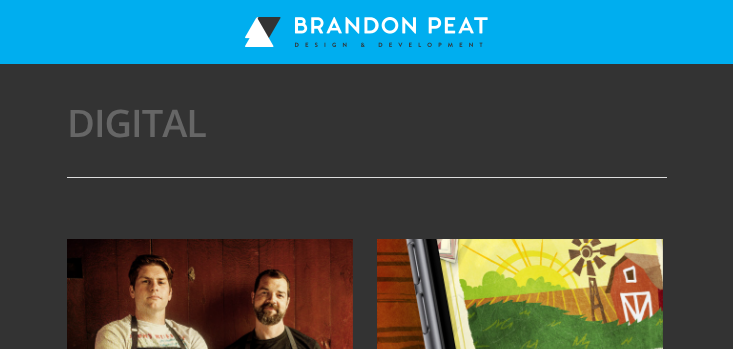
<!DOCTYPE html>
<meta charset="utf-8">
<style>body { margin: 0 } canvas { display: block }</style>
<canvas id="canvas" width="733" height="349"></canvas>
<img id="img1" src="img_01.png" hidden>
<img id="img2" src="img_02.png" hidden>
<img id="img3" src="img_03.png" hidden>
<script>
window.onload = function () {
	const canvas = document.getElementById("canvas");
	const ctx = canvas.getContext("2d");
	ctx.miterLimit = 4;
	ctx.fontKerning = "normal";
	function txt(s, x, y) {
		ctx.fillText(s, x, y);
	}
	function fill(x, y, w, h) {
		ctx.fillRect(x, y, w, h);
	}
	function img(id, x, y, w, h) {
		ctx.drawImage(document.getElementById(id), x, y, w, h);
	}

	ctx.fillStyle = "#333333";
	fill(0, 0, 733, 349);
	ctx.fillStyle = "#00AEEF";
	fill(0, 0, 733, 64);
	img("img1", 245, 17, 243, 30);
	ctx.fillStyle = "#DDDDDD";
	fill(67, 177, 600, 1);
	img("img2", 67, 239, 286, 110);
	img("img3", 377, 239, 286, 110);
	ctx.letterSpacing = "-1px";
	ctx.font = "600 38px Open Sans";
	ctx.fillStyle = "#666666";
	txt("DIGITAL", 67, 137);
};
</script>
